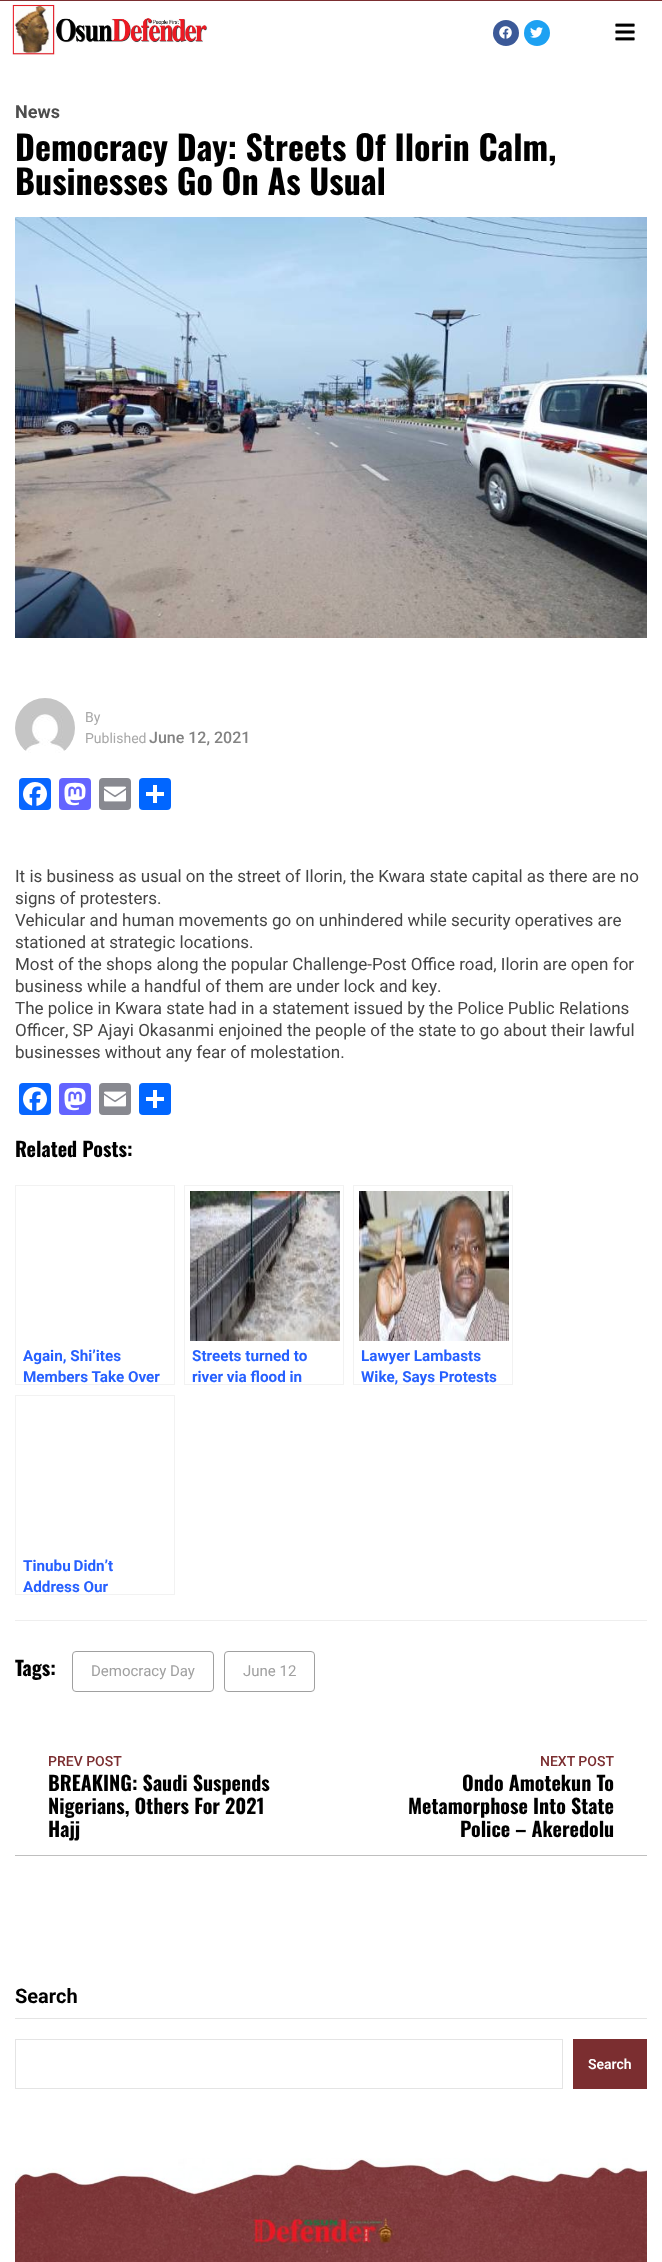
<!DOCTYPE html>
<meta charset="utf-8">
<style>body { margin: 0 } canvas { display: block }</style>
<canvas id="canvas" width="662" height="2262"></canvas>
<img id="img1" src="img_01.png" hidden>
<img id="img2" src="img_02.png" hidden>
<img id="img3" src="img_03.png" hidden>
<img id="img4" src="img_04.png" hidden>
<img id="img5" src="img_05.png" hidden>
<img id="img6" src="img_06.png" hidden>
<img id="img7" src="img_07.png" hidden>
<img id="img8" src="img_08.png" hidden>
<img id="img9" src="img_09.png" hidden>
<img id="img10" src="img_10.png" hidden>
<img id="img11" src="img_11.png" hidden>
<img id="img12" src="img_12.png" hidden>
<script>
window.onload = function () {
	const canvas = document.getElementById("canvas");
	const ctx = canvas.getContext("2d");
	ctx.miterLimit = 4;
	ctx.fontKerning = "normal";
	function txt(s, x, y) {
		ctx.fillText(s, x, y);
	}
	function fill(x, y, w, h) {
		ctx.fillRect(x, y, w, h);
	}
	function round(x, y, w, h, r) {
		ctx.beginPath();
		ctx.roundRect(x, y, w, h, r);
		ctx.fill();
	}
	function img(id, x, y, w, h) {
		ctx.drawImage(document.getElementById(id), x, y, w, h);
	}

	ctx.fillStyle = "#FFFFFF";
	fill(0, 0, 662, 2262);
	ctx.fillStyle = "#7B2E30";
	fill(0, 0, 662, 1);
	img("img1", 12, 4, 196, 51);
	ctx.fillStyle = "#3B5998";
	ctx.beginPath();
	ctx.arc(506, 33, 13, 0, Math.PI * 2);
	ctx.fill();
	img("img2", 499, 26, 13, 13);
	ctx.fillStyle = "#1DA1F2";
	ctx.beginPath();
	ctx.arc(537, 33, 13, 0, Math.PI * 2);
	ctx.fill();
	img("img3", 530, 27, 13, 11);
	img("img4", 615, 23, 20, 18);
	img("img5", 15, 217, 632, 421);
	img("img6", 15, 698, 60, 55);
	ctx.fillStyle = "#0866FF";
	round(19, 778, 32, 32, 4);
	img("img7", 23, 782, 24, 24);
	ctx.fillStyle = "#6364FF";
	round(59, 778, 32, 32, 4);
	img("img8", 64, 782, 22, 24);
	ctx.fillStyle = "#888990";
	round(99, 778, 32, 32, 4);
	img("img9", 104, 786, 22, 16);
	ctx.fillStyle = "#0166FF";
	round(139, 778, 32, 32, 4);
	ctx.fillStyle = "#FFFFFF";
	fill(153, 785, 4, 18);
	fill(146, 792, 18, 4);
	ctx.fillStyle = "#0866FF";
	round(19, 1083, 32, 32, 4);
	img("img7", 23, 1087, 24, 24);
	ctx.fillStyle = "#6364FF";
	round(59, 1083, 32, 32, 4);
	img("img8", 64, 1087, 22, 24);
	ctx.fillStyle = "#888990";
	round(99, 1083, 32, 32, 4);
	img("img9", 104, 1091, 22, 16);
	ctx.fillStyle = "#0166FF";
	round(139, 1083, 32, 32, 4);
	ctx.fillStyle = "#FFFFFF";
	fill(153, 1090, 4, 18);
	fill(146, 1097, 18, 4);
	ctx.strokeStyle = "#F2F2F2";
	ctx.strokeRect(15.5, 1185.5, 159, 199);
	ctx.strokeRect(184.5, 1185.5, 159, 199);
	img("img10", 190, 1191, 150, 150);
	ctx.strokeRect(353.5, 1185.5, 159, 199);
	img("img11", 359, 1191, 150, 150);
	ctx.strokeRect(15.5, 1395.5, 159, 199);
	ctx.fillStyle = "#EEEEEE";
	fill(15, 1620, 632, 1);
	ctx.beginPath();
	ctx.roundRect(72.5, 1651.5, 141, 40, 3.5);
	ctx.strokeStyle = "#A0A0A0";
	ctx.stroke();
	ctx.beginPath();
	ctx.roundRect(224.5, 1651.5, 90, 40, 3.5);
	ctx.stroke();
	ctx.fillStyle = "#BFBFBF";
	fill(15, 1855, 632, 1);
	ctx.fillStyle = "#E4E4E4";
	fill(15, 2018, 632, 1);
	ctx.strokeStyle = "#E4E4E4";
	ctx.strokeRect(15.5, 2039.5, 547, 49);
	ctx.fillStyle = "#7B2E30";
	fill(573, 2039, 74, 50);
	img("img12", 15, 2158, 632, 104);
	ctx.font = "bold 18px Roboto";
	ctx.fillStyle = "#4D4D4D";
	txt("News", 15, 118);
	ctx.font = "bold 34px Oswald";
	ctx.fillStyle = "#000000";
	txt("Democracy Day: Streets Of Ilorin Calm,", 15, 161);
	txt("Businesses Go On As Usual", 15, 195);
	ctx.font = "14px Roboto";
	ctx.fillStyle = "#A8A8A8";
	txt("By", 85, 722);
	txt("Published", 85, 743);
	ctx.font = "500 16px Roboto";
	ctx.fillStyle = "#838383";
	txt("June 12, 2021", 149, 743);
	ctx.font = "17px Roboto";
	ctx.fillStyle = "#454545";
	txt("It is business as usual on the street of Ilorin, the Kwara state capital as there are no", 15, 882);
	txt("signs of protesters.", 15, 904);
	txt("Vehicular and human movements go on unhindered while security operatives are", 15, 926);
	txt("stationed at strategic locations.", 15, 948);
	txt("Most of the shops along the popular Challenge-Post Office road, Ilorin are open for", 15, 970);
	txt("business while a handful of them are under lock and key.", 15, 992);
	txt("The police in Kwara state had in a statement issued by the Police Public Relations", 15, 1014);
	txt("Officer, SP Ajayi Okasanmi enjoined the people of the state to go about their lawful", 15, 1036);
	txt("businesses without any fear of molestation.", 15, 1058);
	ctx.font = "bold 20px Oswald";
	ctx.fillStyle = "#000000";
	txt("Related Posts:", 15, 1157);
	ctx.font = "bold 15.25px Roboto";
	ctx.fillStyle = "#2660FF";
	txt("Again, Shi’ites", 23, 1361);
	txt("Members Take Over", 23, 1382);
	txt("Streets turned to", 192, 1361);
	txt("river via flood in", 192, 1382);
	txt("Lawyer Lambasts", 361, 1361);
	txt("Wike, Says Protests", 361, 1382);
	ctx.wordSpacing = "-1px";
	txt("Tinubu Didn’t", 23, 1571);
	ctx.wordSpacing = "0px";
	txt("Address Our", 23, 1592);
	ctx.font = "bold 20px Oswald";
	ctx.fillStyle = "#000000";
	txt("Tags:", 15, 1676);
	ctx.font = "15px Roboto";
	ctx.fillStyle = "#A0A0A0";
	txt("Democracy Day", 91, 1676);
	txt("June 12", 243, 1676);
	ctx.font = "500 14px Roboto";
	ctx.fillStyle = "#7B2E30";
	txt("PREV POST", 48, 1766);
	ctx.font = "bold 20px Oswald";
	ctx.fillStyle = "#000000";
	txt("BREAKING: Saudi Suspends", 48, 1791);
	txt("Nigerians, Others For 2021", 48, 1814);
	txt("Hajj", 48, 1837);
	ctx.font = "500 14px Roboto";
	ctx.fillStyle = "#7B2E30";
	txt("NEXT POST", 540, 1766);
	ctx.font = "bold 20px Oswald";
	ctx.fillStyle = "#000000";
	txt("Ondo Amotekun To", 462, 1791);
	txt("Metamorphose Into State", 408, 1814);
	txt("Police – Akeredolu", 460, 1837);
	ctx.font = "bold 20px Roboto";
	txt("Search", 15, 2003);
	ctx.font = "600 14px Roboto";
	ctx.fillStyle = "#FFFFFF";
	txt("Search", 588, 2069);
};
</script>
